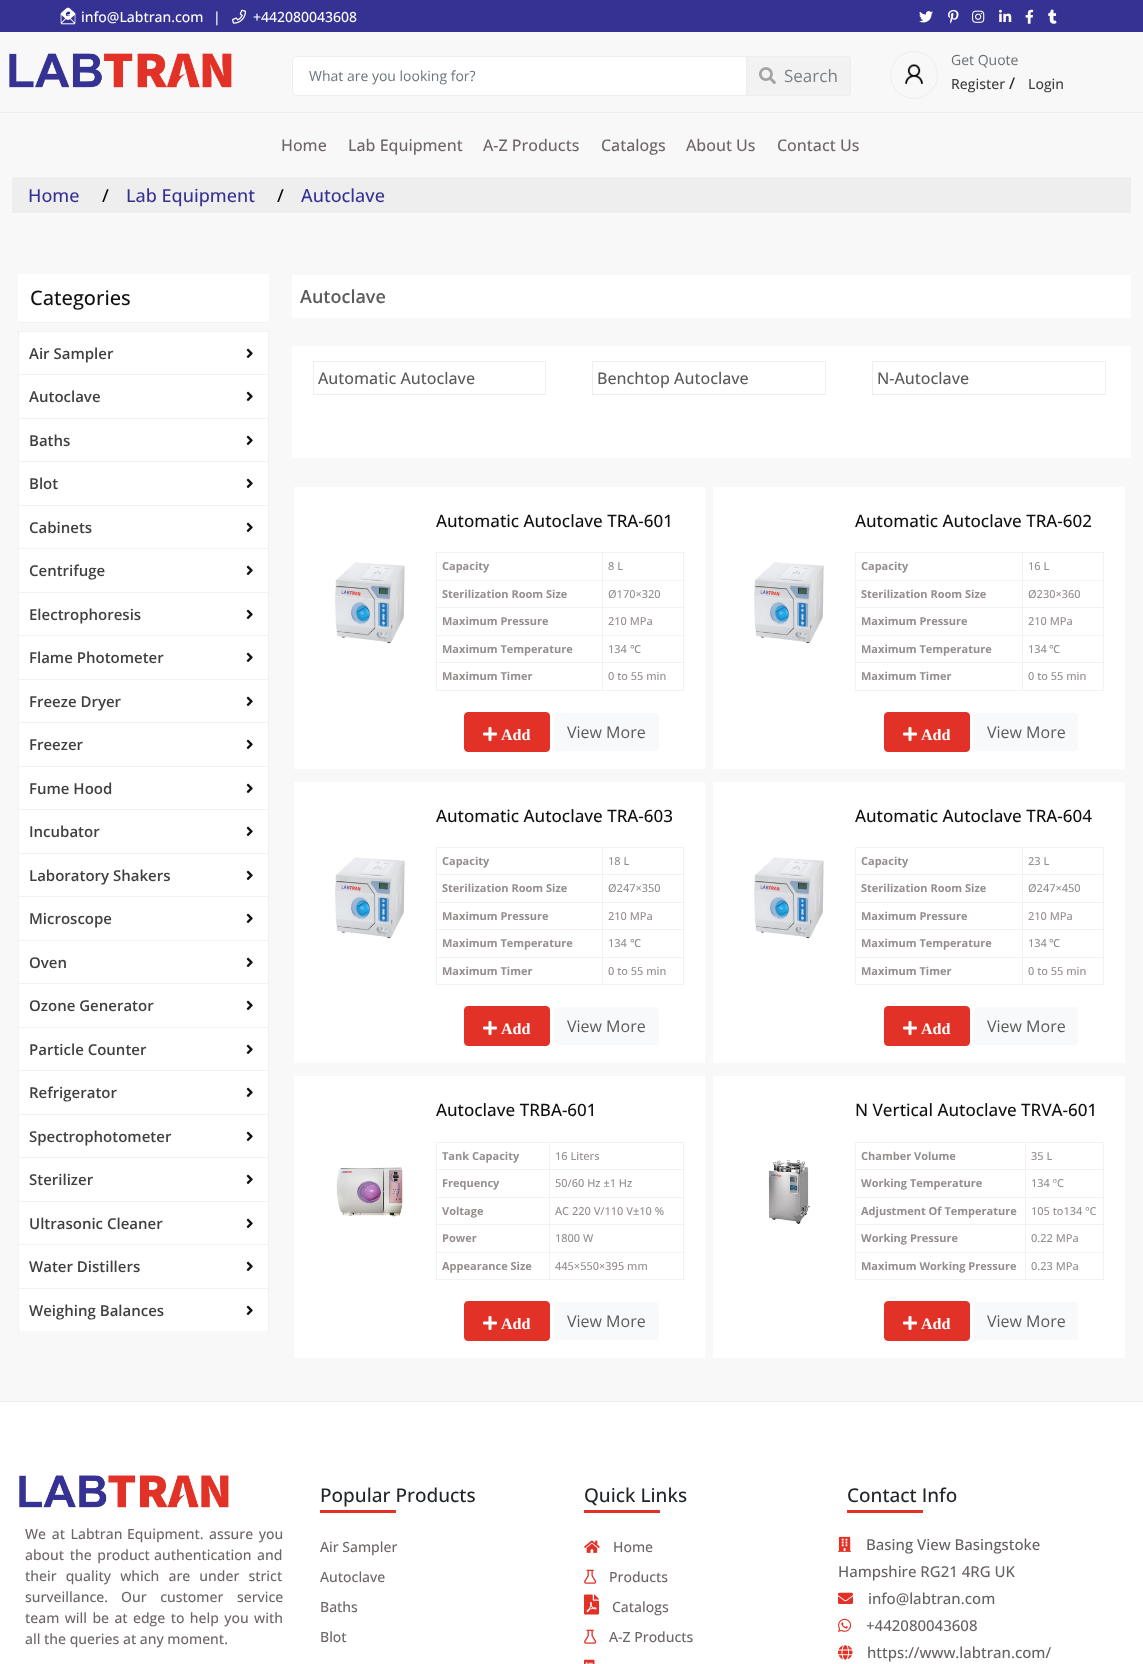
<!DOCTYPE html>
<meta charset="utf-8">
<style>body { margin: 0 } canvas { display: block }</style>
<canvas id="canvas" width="1143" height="1664"></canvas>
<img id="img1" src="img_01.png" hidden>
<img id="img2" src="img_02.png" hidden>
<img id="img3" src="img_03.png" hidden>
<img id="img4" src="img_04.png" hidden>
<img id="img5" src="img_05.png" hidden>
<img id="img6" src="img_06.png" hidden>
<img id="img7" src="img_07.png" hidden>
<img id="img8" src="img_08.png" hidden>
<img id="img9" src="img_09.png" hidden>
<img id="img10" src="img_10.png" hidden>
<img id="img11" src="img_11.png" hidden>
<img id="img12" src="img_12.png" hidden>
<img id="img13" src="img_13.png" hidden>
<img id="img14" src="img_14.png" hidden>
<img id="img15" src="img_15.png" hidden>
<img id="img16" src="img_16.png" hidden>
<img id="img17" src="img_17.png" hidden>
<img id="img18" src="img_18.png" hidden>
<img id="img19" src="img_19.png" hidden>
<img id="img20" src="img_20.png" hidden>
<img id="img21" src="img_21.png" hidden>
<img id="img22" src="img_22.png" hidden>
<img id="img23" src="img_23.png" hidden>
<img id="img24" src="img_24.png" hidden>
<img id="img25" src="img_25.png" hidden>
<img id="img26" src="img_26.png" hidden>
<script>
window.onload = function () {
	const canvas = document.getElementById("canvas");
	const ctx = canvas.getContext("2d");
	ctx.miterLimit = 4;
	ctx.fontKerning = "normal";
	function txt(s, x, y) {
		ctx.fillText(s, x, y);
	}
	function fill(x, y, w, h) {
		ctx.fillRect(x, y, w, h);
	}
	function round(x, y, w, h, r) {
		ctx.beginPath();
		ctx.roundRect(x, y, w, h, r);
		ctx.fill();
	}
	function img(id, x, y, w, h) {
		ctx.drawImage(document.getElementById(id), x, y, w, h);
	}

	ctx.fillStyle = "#F8F8F8";
	fill(0, 0, 1143, 1664);
	ctx.fillStyle = "#363293";
	fill(0, 0, 1143, 32);
	img("img1", 60, 7, 16, 18);
	img("img2", 232, 9, 14, 15);
	img("img3", 919, 11, 14, 12);
	img("img4", 948, 9, 11, 15);
	img("img5", 972, 10, 13, 13);
	img("img6", 999, 9, 13, 13);
	img("img7", 1025, 9, 9, 15);
	img("img8", 1048, 9, 9, 15);
	ctx.fillStyle = "#EEEEEE";
	fill(0, 112, 1143, 1);
	img("img9", 9, 53, 223, 35);
	ctx.fillStyle = "#F2F2F2";
	ctx.beginPath();
	ctx.roundRect(746.5, 56.5, 104, 39, [0, 3.5, 3.5, 0]);
	ctx.fill();
	ctx.strokeStyle = "#EEEEEE";
	ctx.stroke();
	ctx.fillStyle = "#FFFFFF";
	ctx.beginPath();
	ctx.roundRect(292.5, 56.5, 454, 39, [4.5, 0, 0, 4.5]);
	ctx.fill();
	ctx.stroke();
	img("img10", 759, 67, 17, 17);
	ctx.beginPath();
	ctx.arc(914, 75, 23.5, 0, Math.PI * 2);
	ctx.stroke();
	img("img11", 905, 64, 18, 20);
	ctx.fillStyle = "#F2F2F2";
	fill(12, 177, 1119, 1);
	ctx.fillStyle = "#EEEEEE";
	fill(12, 178, 1119, 35);
	ctx.fillStyle = "#FFFFFF";
	fill(18, 274, 251, 48);
	ctx.fillStyle = "#F2F2F2";
	fill(18, 322, 251, 1);
	ctx.fillStyle = "#FFFFFF";
	fill(19, 332, 249, 42);
	ctx.fillStyle = "#F2F2F2";
	fill(18, 331, 251, 1);
	fill(268, 331, 1, 43);
	fill(18, 331, 1, 43);
	img("img12", 246, 348, 7, 10);
	ctx.fillStyle = "#FFFFFF";
	fill(19, 375, 249, 43);
	ctx.fillStyle = "#F2F2F2";
	fill(18, 374, 251, 1);
	fill(268, 374, 1, 44);
	fill(18, 374, 1, 44);
	img("img12", 246, 391, 7, 10);
	ctx.fillStyle = "#FFFFFF";
	fill(19, 419, 249, 42);
	ctx.fillStyle = "#F2F2F2";
	fill(18, 418, 251, 1);
	fill(268, 418, 1, 43);
	fill(18, 418, 1, 43);
	img("img12", 246, 435, 7, 10);
	ctx.fillStyle = "#FFFFFF";
	fill(19, 462, 249, 43);
	ctx.fillStyle = "#F2F2F2";
	fill(18, 461, 251, 1);
	fill(268, 461, 1, 44);
	fill(18, 461, 1, 44);
	img("img12", 246, 478, 7, 10);
	ctx.fillStyle = "#FFFFFF";
	fill(19, 506, 249, 42);
	ctx.fillStyle = "#F2F2F2";
	fill(18, 505, 251, 1);
	fill(268, 505, 1, 43);
	fill(18, 505, 1, 43);
	img("img12", 246, 522, 7, 10);
	ctx.fillStyle = "#FFFFFF";
	fill(19, 549, 249, 43);
	ctx.fillStyle = "#F2F2F2";
	fill(18, 548, 251, 1);
	fill(268, 548, 1, 44);
	fill(18, 548, 1, 44);
	img("img12", 246, 565, 7, 10);
	ctx.fillStyle = "#FFFFFF";
	fill(19, 593, 249, 42);
	ctx.fillStyle = "#F2F2F2";
	fill(18, 592, 251, 1);
	fill(268, 592, 1, 43);
	fill(18, 592, 1, 43);
	img("img12", 246, 609, 7, 10);
	ctx.fillStyle = "#FFFFFF";
	fill(19, 636, 249, 43);
	ctx.fillStyle = "#F2F2F2";
	fill(18, 635, 251, 1);
	fill(268, 635, 1, 44);
	fill(18, 635, 1, 44);
	img("img12", 246, 652, 7, 10);
	ctx.fillStyle = "#FFFFFF";
	fill(19, 680, 249, 42);
	ctx.fillStyle = "#F2F2F2";
	fill(18, 679, 251, 1);
	fill(268, 679, 1, 43);
	fill(18, 679, 1, 43);
	img("img12", 246, 696, 7, 10);
	ctx.fillStyle = "#FFFFFF";
	fill(19, 723, 249, 43);
	ctx.fillStyle = "#F2F2F2";
	fill(18, 722, 251, 1);
	fill(268, 722, 1, 44);
	fill(18, 722, 1, 44);
	img("img12", 246, 739, 7, 10);
	ctx.fillStyle = "#FFFFFF";
	fill(19, 767, 249, 42);
	ctx.fillStyle = "#F2F2F2";
	fill(18, 766, 251, 1);
	fill(268, 766, 1, 43);
	fill(18, 766, 1, 43);
	img("img12", 246, 783, 7, 10);
	ctx.fillStyle = "#FFFFFF";
	fill(19, 810, 249, 43);
	ctx.fillStyle = "#F2F2F2";
	fill(18, 809, 251, 1);
	fill(268, 809, 1, 44);
	fill(18, 809, 1, 44);
	img("img12", 246, 826, 7, 10);
	ctx.fillStyle = "#FFFFFF";
	fill(19, 854, 249, 42);
	ctx.fillStyle = "#F2F2F2";
	fill(18, 853, 251, 1);
	fill(268, 853, 1, 43);
	fill(18, 853, 1, 43);
	img("img12", 246, 870, 7, 10);
	ctx.fillStyle = "#FFFFFF";
	fill(19, 897, 249, 43);
	ctx.fillStyle = "#F2F2F2";
	fill(18, 896, 251, 1);
	fill(268, 896, 1, 44);
	fill(18, 896, 1, 44);
	img("img12", 246, 913, 7, 10);
	ctx.fillStyle = "#FFFFFF";
	fill(19, 941, 249, 42);
	ctx.fillStyle = "#F2F2F2";
	fill(18, 940, 251, 1);
	fill(268, 940, 1, 43);
	fill(18, 940, 1, 43);
	img("img12", 246, 957, 7, 10);
	ctx.fillStyle = "#FFFFFF";
	fill(19, 984, 249, 43);
	ctx.fillStyle = "#F2F2F2";
	fill(18, 983, 251, 1);
	fill(268, 983, 1, 44);
	fill(18, 983, 1, 44);
	img("img12", 246, 1000, 7, 10);
	ctx.fillStyle = "#FFFFFF";
	fill(19, 1028, 249, 42);
	ctx.fillStyle = "#F2F2F2";
	fill(18, 1027, 251, 1);
	fill(268, 1027, 1, 43);
	fill(18, 1027, 1, 43);
	img("img12", 246, 1044, 7, 10);
	ctx.fillStyle = "#FFFFFF";
	fill(19, 1071, 249, 43);
	ctx.fillStyle = "#F2F2F2";
	fill(18, 1070, 251, 1);
	fill(268, 1070, 1, 44);
	fill(18, 1070, 1, 44);
	img("img12", 246, 1087, 7, 10);
	ctx.fillStyle = "#FFFFFF";
	fill(19, 1115, 249, 42);
	ctx.fillStyle = "#F2F2F2";
	fill(18, 1114, 251, 1);
	fill(268, 1114, 1, 43);
	fill(18, 1114, 1, 43);
	img("img12", 246, 1131, 7, 10);
	ctx.fillStyle = "#FFFFFF";
	fill(19, 1158, 249, 43);
	ctx.fillStyle = "#F2F2F2";
	fill(18, 1157, 251, 1);
	fill(268, 1157, 1, 44);
	fill(18, 1157, 1, 44);
	img("img12", 246, 1174, 7, 10);
	ctx.fillStyle = "#FFFFFF";
	fill(19, 1202, 249, 42);
	ctx.fillStyle = "#F2F2F2";
	fill(18, 1201, 251, 1);
	fill(268, 1201, 1, 43);
	fill(18, 1201, 1, 43);
	img("img12", 246, 1218, 7, 10);
	ctx.fillStyle = "#FFFFFF";
	fill(19, 1245, 249, 43);
	ctx.fillStyle = "#F2F2F2";
	fill(18, 1244, 251, 1);
	fill(268, 1244, 1, 44);
	fill(18, 1244, 1, 44);
	img("img12", 246, 1261, 7, 10);
	ctx.fillStyle = "#FFFFFF";
	fill(19, 1289, 249, 42);
	ctx.fillStyle = "#F2F2F2";
	fill(18, 1288, 251, 1);
	fill(268, 1288, 1, 43);
	fill(18, 1288, 1, 43);
	img("img12", 246, 1305, 7, 10);
	ctx.fillStyle = "#FFFFFF";
	fill(292, 275, 839, 43);
	fill(292, 346, 839, 112);
	ctx.strokeRect(313.5, 361.5, 232, 33);
	ctx.strokeRect(592.5, 361.5, 233, 33);
	ctx.strokeRect(872.5, 361.5, 233, 33);
	fill(294, 487, 411, 282);
	img("img13", 335, 562, 70, 82);
	ctx.fillStyle = "#F2F2F2";
	fill(683, 552, 1, 139);
	fill(436, 552, 1, 139);
	fill(436, 552, 248, 1);
	fill(436, 580, 248, 1);
	fill(436, 607, 248, 1);
	fill(436, 635, 248, 1);
	fill(436, 662, 248, 1);
	fill(602, 690, 82, 1);
	fill(602, 662, 1, 29);
	fill(602, 635, 1, 28);
	fill(602, 607, 1, 29);
	fill(602, 580, 1, 28);
	fill(602, 552, 1, 29);
	fill(436, 690, 167, 1);
	ctx.fillStyle = "#E23127";
	ctx.beginPath();
	ctx.roundRect(464.5, 712.5, 85, 39, 3.5);
	ctx.fill();
	ctx.strokeStyle = "#E23127";
	ctx.stroke();
	img("img14", 483, 727, 14, 14);
	ctx.fillStyle = "#F8F9FA";
	round(554, 713, 105, 38, 4);
	ctx.fillStyle = "#FFFFFF";
	fill(713, 487, 412, 282);
	img("img13", 754, 562, 70, 82);
	ctx.fillStyle = "#F2F2F2";
	fill(1103, 552, 1, 139);
	fill(855, 552, 1, 139);
	fill(855, 552, 249, 1);
	fill(855, 580, 249, 1);
	fill(855, 607, 249, 1);
	fill(855, 635, 249, 1);
	fill(855, 662, 249, 1);
	fill(1022, 690, 82, 1);
	fill(1022, 662, 1, 29);
	fill(1022, 635, 1, 28);
	fill(1022, 607, 1, 29);
	fill(1022, 580, 1, 28);
	fill(1022, 552, 1, 29);
	fill(855, 690, 168, 1);
	ctx.fillStyle = "#E23127";
	ctx.beginPath();
	ctx.roundRect(884.5, 712.5, 85, 39, 3.5);
	ctx.fill();
	ctx.stroke();
	img("img14", 903, 727, 14, 14);
	ctx.fillStyle = "#F8F9FA";
	round(974, 713, 104, 38, 4);
	ctx.fillStyle = "#FFFFFF";
	fill(294, 782, 411, 281);
	img("img15", 335, 857, 70, 82);
	ctx.fillStyle = "#F2F2F2";
	fill(683, 847, 1, 138);
	fill(436, 847, 1, 138);
	fill(436, 847, 248, 1);
	fill(436, 874, 248, 1);
	fill(436, 902, 248, 1);
	fill(436, 929, 248, 1);
	fill(436, 957, 248, 1);
	fill(602, 984, 82, 1);
	fill(602, 957, 1, 28);
	fill(602, 929, 1, 29);
	fill(602, 902, 1, 28);
	fill(602, 874, 1, 29);
	fill(602, 847, 1, 28);
	fill(436, 984, 167, 1);
	ctx.fillStyle = "#E23127";
	ctx.beginPath();
	ctx.roundRect(464.5, 1006.5, 85, 39, 3.5);
	ctx.fill();
	ctx.stroke();
	img("img14", 483, 1021, 14, 14);
	ctx.fillStyle = "#F8F9FA";
	round(554, 1007, 105, 38, 4);
	ctx.fillStyle = "#FFFFFF";
	fill(713, 782, 412, 281);
	img("img15", 754, 857, 70, 82);
	ctx.fillStyle = "#F2F2F2";
	fill(1103, 847, 1, 138);
	fill(855, 847, 1, 138);
	fill(855, 847, 249, 1);
	fill(855, 874, 249, 1);
	fill(855, 902, 249, 1);
	fill(855, 929, 249, 1);
	fill(855, 957, 249, 1);
	fill(1022, 984, 82, 1);
	fill(1022, 957, 1, 28);
	fill(1022, 929, 1, 29);
	fill(1022, 902, 1, 28);
	fill(1022, 874, 1, 29);
	fill(1022, 847, 1, 28);
	fill(855, 984, 168, 1);
	ctx.fillStyle = "#E23127";
	ctx.beginPath();
	ctx.roundRect(884.5, 1006.5, 85, 39, 3.5);
	ctx.fill();
	ctx.stroke();
	img("img14", 903, 1021, 14, 14);
	ctx.fillStyle = "#F8F9FA";
	round(974, 1007, 104, 38, 4);
	ctx.fillStyle = "#FFFFFF";
	fill(294, 1076, 411, 282);
	img("img16", 336, 1167, 67, 50);
	ctx.fillStyle = "#F2F2F2";
	fill(683, 1142, 1, 138);
	fill(436, 1142, 1, 138);
	fill(436, 1142, 248, 1);
	fill(436, 1169, 248, 1);
	fill(436, 1197, 248, 1);
	fill(436, 1224, 248, 1);
	fill(436, 1252, 248, 1);
	fill(549, 1279, 135, 1);
	fill(549, 1252, 1, 28);
	fill(549, 1224, 1, 29);
	fill(549, 1197, 1, 28);
	fill(549, 1169, 1, 29);
	fill(549, 1142, 1, 28);
	fill(436, 1279, 114, 1);
	ctx.fillStyle = "#E23127";
	ctx.beginPath();
	ctx.roundRect(464.5, 1301.5, 85, 39, 3.5);
	ctx.fill();
	ctx.stroke();
	img("img14", 483, 1316, 14, 14);
	ctx.fillStyle = "#F8F9FA";
	round(554, 1302, 105, 38, 4);
	ctx.fillStyle = "#FFFFFF";
	fill(713, 1076, 412, 282);
	img("img17", 768, 1160, 42, 64);
	ctx.fillStyle = "#F2F2F2";
	fill(1103, 1142, 1, 138);
	fill(855, 1142, 1, 138);
	fill(855, 1142, 249, 1);
	fill(855, 1169, 249, 1);
	fill(855, 1197, 249, 1);
	fill(855, 1224, 249, 1);
	fill(855, 1252, 249, 1);
	fill(1025, 1279, 79, 1);
	fill(1025, 1252, 1, 28);
	fill(1025, 1224, 1, 29);
	fill(1025, 1197, 1, 28);
	fill(1025, 1169, 1, 29);
	fill(1025, 1142, 1, 28);
	fill(855, 1279, 171, 1);
	ctx.fillStyle = "#E23127";
	ctx.beginPath();
	ctx.roundRect(884.5, 1301.5, 85, 39, 3.5);
	ctx.fill();
	ctx.stroke();
	img("img14", 903, 1316, 14, 14);
	ctx.fillStyle = "#F8F9FA";
	round(974, 1302, 104, 38, 4);
	ctx.fillStyle = "#FFFFFF";
	fill(0, 1402, 1143, 262);
	ctx.fillStyle = "#EEEEEE";
	fill(0, 1401, 1143, 1);
	img("img18", 19, 1475, 210, 33);
	ctx.fillStyle = "#E23127";
	fill(320, 1510, 76, 3);
	fill(584, 1510, 76, 3);
	img("img19", 584, 1540, 16, 13);
	img("img20", 584, 1569, 13, 15);
	img("img21", 584, 1594, 15, 21);
	img("img20", 584, 1629, 13, 15);
	img("img22", 584, 1659, 11, 5);
	fill(847, 1510, 76, 3);
	img("img23", 838, 1536, 14, 16);
	img("img24", 838, 1592, 15, 12);
	img("img25", 838, 1618, 14, 14);
	img("img26", 838, 1645, 15, 15);
	ctx.font = "500 14px Open Sans";
	ctx.fillStyle = "#FFFFFF";
	txt("info@Labtran.com", 81, 22);
	txt("|", 213, 22);
	txt("+442080043608", 253, 22);
	ctx.font = "14px Open Sans";
	ctx.fillStyle = "#6C757D";
	txt("What are you looking for?", 309, 81);
	ctx.font = "17px Open Sans";
	ctx.fillStyle = "#7A7F84";
	txt("Search", 784, 82);
	ctx.font = "14px Open Sans";
	ctx.fillStyle = "#6B7075";
	txt("Get Quote", 951, 65);
	ctx.font = "500 14px Open Sans";
	ctx.fillStyle = "#423F3F";
	txt("Register", 951, 89);
	ctx.font = "500 16px Open Sans";
	ctx.fillStyle = "#212529";
	txt("/", 1009, 89);
	ctx.font = "500 14px Open Sans";
	ctx.fillStyle = "#423F3F";
	txt("Login", 1028, 89);
	ctx.font = "500 16px Open Sans";
	ctx.fillStyle = "#6E6666";
	txt("Home", 281, 151);
	txt("Lab Equipment", 348, 151);
	txt("A-Z Products", 483, 151);
	txt("Catalogs", 601, 151);
	txt("About Us", 686, 151);
	txt("Contact Us", 777, 151);
	ctx.font = "500 18px Open Sans";
	ctx.fillStyle = "#363293";
	txt("Home", 28, 202);
	ctx.fillStyle = "#000000";
	txt("/", 102, 202);
	ctx.fillStyle = "#363293";
	txt("Lab Equipment", 126, 202);
	ctx.fillStyle = "#000000";
	txt("/", 277, 202);
	ctx.fillStyle = "#363293";
	txt("Autoclave", 301, 202);
	ctx.font = "500 20px Open Sans";
	ctx.fillStyle = "#111010";
	txt("Categories", 30, 305);
	ctx.font = "600 15px Open Sans";
	ctx.fillStyle = "#423F3F";
	txt("Air Sampler", 29, 359);
	txt("Autoclave", 29, 402);
	txt("Baths", 29, 446);
	txt("Blot", 29, 489);
	txt("Cabinets", 29, 533);
	txt("Centrifuge", 29, 576);
	txt("Electrophoresis", 29, 620);
	txt("Flame Photometer", 29, 663);
	txt("Freeze Dryer", 29, 707);
	txt("Freezer", 29, 750);
	txt("Fume Hood", 29, 794);
	txt("Incubator", 29, 837);
	txt("Laboratory Shakers", 29, 881);
	txt("Microscope", 29, 924);
	txt("Oven", 29, 968);
	txt("Ozone Generator", 29, 1011);
	txt("Particle Counter", 29, 1055);
	txt("Refrigerator", 29, 1098);
	txt("Spectrophotometer", 29, 1142);
	txt("Sterilizer", 29, 1185);
	txt("Ultrasonic Cleaner", 29, 1229);
	txt("Water Distillers", 29, 1272);
	txt("Weighing Balances", 29, 1316);
	ctx.font = "600 18px Open Sans";
	ctx.fillStyle = "#5B5B5B";
	txt("Autoclave", 300, 303);
	ctx.font = "500 16px Open Sans";
	txt("Automatic Autoclave", 318, 384);
	txt("Benchtop Autoclave", 597, 384);
	txt("N-Autoclave", 877, 384);
	ctx.font = "500 17px Open Sans";
	ctx.fillStyle = "#111010";
	txt("Automatic Autoclave TRA-601", 436, 527);
	ctx.font = "bold 11px Open Sans";
	ctx.fillStyle = "#958E8E";
	txt("Capacity", 442, 570);
	ctx.font = "500 11px Open Sans";
	txt("8 L", 608, 570);
	ctx.font = "bold 11px Open Sans";
	txt("Sterilization Room Size", 442, 598);
	ctx.font = "500 11px Open Sans";
	txt("Ø170×320", 608, 598);
	ctx.font = "bold 11px Open Sans";
	txt("Maximum Pressure", 442, 625);
	ctx.font = "500 11px Open Sans";
	txt("210 MPa", 608, 625);
	ctx.font = "bold 11px Open Sans";
	txt("Maximum Temperature", 442, 653);
	ctx.font = "500 11px Open Sans";
	txt("134", 608, 653);
	ctx.font = "500 11px Noto Sans";
	txt("℃", 630, 653);
	ctx.font = "bold 11px Open Sans";
	txt("Maximum Timer", 442, 680);
	ctx.font = "500 11px Open Sans";
	txt("0 to 55 min", 608, 680);
	ctx.font = "bold 16px Liberation Serif";
	ctx.fillStyle = "#FFFFFF";
	txt("Add", 501, 740);
	ctx.font = "16px Open Sans";
	ctx.fillStyle = "#5B5B5B";
	txt("View More", 567, 738);
	ctx.font = "500 17px Open Sans";
	ctx.fillStyle = "#111010";
	txt("Automatic Autoclave TRA-602", 855, 527);
	ctx.font = "bold 11px Open Sans";
	ctx.fillStyle = "#958E8E";
	txt("Capacity", 861, 570);
	ctx.font = "500 11px Open Sans";
	txt("16 L", 1028, 570);
	ctx.font = "bold 11px Open Sans";
	txt("Sterilization Room Size", 861, 598);
	ctx.font = "500 11px Open Sans";
	txt("Ø230×360", 1028, 598);
	ctx.font = "bold 11px Open Sans";
	txt("Maximum Pressure", 861, 625);
	ctx.font = "500 11px Open Sans";
	txt("210 MPa", 1028, 625);
	ctx.font = "bold 11px Open Sans";
	txt("Maximum Temperature", 861, 653);
	ctx.font = "500 11px Open Sans";
	txt("134", 1028, 653);
	ctx.font = "500 11px Noto Sans";
	txt("℃", 1049, 653);
	ctx.font = "bold 11px Open Sans";
	txt("Maximum Timer", 861, 680);
	ctx.font = "500 11px Open Sans";
	txt("0 to 55 min", 1028, 680);
	ctx.font = "bold 16px Liberation Serif";
	ctx.fillStyle = "#FFFFFF";
	txt("Add", 921, 740);
	ctx.font = "16px Open Sans";
	ctx.fillStyle = "#5B5B5B";
	txt("View More", 987, 738);
	ctx.font = "500 17px Open Sans";
	ctx.fillStyle = "#111010";
	txt("Automatic Autoclave TRA-603", 436, 822);
	ctx.font = "bold 11px Open Sans";
	ctx.fillStyle = "#958E8E";
	txt("Capacity", 442, 865);
	ctx.font = "500 11px Open Sans";
	txt("18 L", 608, 865);
	ctx.font = "bold 11px Open Sans";
	txt("Sterilization Room Size", 442, 892);
	ctx.font = "500 11px Open Sans";
	txt("Ø247×350", 608, 892);
	ctx.font = "bold 11px Open Sans";
	txt("Maximum Pressure", 442, 920);
	ctx.font = "500 11px Open Sans";
	txt("210 MPa", 608, 920);
	ctx.font = "bold 11px Open Sans";
	txt("Maximum Temperature", 442, 947);
	ctx.font = "500 11px Open Sans";
	txt("134", 608, 947);
	ctx.font = "500 11px Noto Sans";
	txt("℃", 630, 947);
	ctx.font = "bold 11px Open Sans";
	txt("Maximum Timer", 442, 975);
	ctx.font = "500 11px Open Sans";
	txt("0 to 55 min", 608, 975);
	ctx.font = "bold 16px Liberation Serif";
	ctx.fillStyle = "#FFFFFF";
	txt("Add", 501, 1034);
	ctx.font = "16px Open Sans";
	ctx.fillStyle = "#5B5B5B";
	txt("View More", 567, 1032);
	ctx.font = "500 17px Open Sans";
	ctx.fillStyle = "#111010";
	txt("Automatic Autoclave TRA-604", 855, 822);
	ctx.font = "bold 11px Open Sans";
	ctx.fillStyle = "#958E8E";
	txt("Capacity", 861, 865);
	ctx.font = "500 11px Open Sans";
	txt("23 L", 1028, 865);
	ctx.font = "bold 11px Open Sans";
	txt("Sterilization Room Size", 861, 892);
	ctx.font = "500 11px Open Sans";
	txt("Ø247×450", 1028, 892);
	ctx.font = "bold 11px Open Sans";
	txt("Maximum Pressure", 861, 920);
	ctx.font = "500 11px Open Sans";
	txt("210 MPa", 1028, 920);
	ctx.font = "bold 11px Open Sans";
	txt("Maximum Temperature", 861, 947);
	ctx.font = "500 11px Open Sans";
	txt("134", 1028, 947);
	ctx.font = "500 11px Noto Sans";
	txt("℃", 1049, 947);
	ctx.font = "bold 11px Open Sans";
	txt("Maximum Timer", 861, 975);
	ctx.font = "500 11px Open Sans";
	txt("0 to 55 min", 1028, 975);
	ctx.font = "bold 16px Liberation Serif";
	ctx.fillStyle = "#FFFFFF";
	txt("Add", 921, 1034);
	ctx.font = "16px Open Sans";
	ctx.fillStyle = "#5B5B5B";
	txt("View More", 987, 1032);
	ctx.font = "500 17px Open Sans";
	ctx.fillStyle = "#111010";
	txt("Autoclave TRBA-601", 436, 1116);
	ctx.font = "bold 11px Open Sans";
	ctx.fillStyle = "#958E8E";
	txt("Tank Capacity", 442, 1160);
	ctx.font = "500 11px Open Sans";
	txt("16 Liters", 555, 1160);
	ctx.font = "bold 11px Open Sans";
	txt("Frequency", 442, 1187);
	ctx.font = "500 11px Open Sans";
	txt("50/60 Hz ±1 Hz", 555, 1187);
	ctx.font = "bold 11px Open Sans";
	txt("Voltage", 442, 1215);
	ctx.font = "500 11px Open Sans";
	txt("AC 220 V/110 V±10 %", 555, 1215);
	ctx.font = "bold 11px Open Sans";
	txt("Power", 442, 1242);
	ctx.font = "500 11px Open Sans";
	txt("1800 W", 555, 1242);
	ctx.font = "bold 11px Open Sans";
	txt("Appearance Size", 442, 1270);
	ctx.font = "500 11px Open Sans";
	txt("445×550×395 mm", 555, 1270);
	ctx.font = "bold 16px Liberation Serif";
	ctx.fillStyle = "#FFFFFF";
	txt("Add", 501, 1329);
	ctx.font = "16px Open Sans";
	ctx.fillStyle = "#5B5B5B";
	txt("View More", 567, 1327);
	ctx.font = "500 17px Open Sans";
	ctx.fillStyle = "#111010";
	txt("N Vertical Autoclave TRVA-601", 855, 1116);
	ctx.font = "bold 11px Open Sans";
	ctx.fillStyle = "#958E8E";
	txt("Chamber Volume", 861, 1160);
	ctx.font = "500 11px Open Sans";
	txt("35 L", 1031, 1160);
	ctx.font = "bold 11px Open Sans";
	txt("Working Temperature", 861, 1187);
	ctx.font = "500 11px Open Sans";
	txt("134 ºC", 1031, 1187);
	ctx.font = "bold 11px Open Sans";
	txt("Adjustment Of Temperature", 861, 1215);
	ctx.font = "500 11px Open Sans";
	txt("105 to134 ºC", 1031, 1215);
	ctx.font = "bold 11px Open Sans";
	txt("Working Pressure", 861, 1242);
	ctx.font = "500 11px Open Sans";
	txt("0.22 MPa", 1031, 1242);
	ctx.font = "bold 11px Open Sans";
	txt("Maximum Working Pressure", 861, 1270);
	ctx.font = "500 11px Open Sans";
	txt("0.23 MPa", 1031, 1270);
	ctx.font = "bold 16px Liberation Serif";
	ctx.fillStyle = "#FFFFFF";
	txt("Add", 921, 1329);
	ctx.font = "16px Open Sans";
	ctx.fillStyle = "#5B5B5B";
	txt("View More", 987, 1327);
	ctx.wordSpacing = "2px";
	ctx.font = "500 14px Open Sans";
	ctx.fillStyle = "#6E6666";
	txt("We at Labtran", 25, 1539);
	txt("Equipment. assure you", 127, 1539);
	txt("about the product", 25, 1560);
	txt("authentication and", 154, 1560);
	ctx.wordSpacing = "5.5px";
	txt("their quality which are under strict", 25, 1581);
	ctx.wordSpacing = "0px";
	txt("surveillance.", 25, 1602);
	ctx.wordSpacing = "10px";
	txt("Our customer service", 121, 1602);
	ctx.wordSpacing = "1.75px";
	txt("team will be at edge to help you with", 25, 1623);
	ctx.wordSpacing = "0px";
	txt("all the queries at any moment.", 25, 1644);
	ctx.font = "500 19px Open Sans";
	ctx.fillStyle = "#212529";
	txt("Popular Products", 320, 1502);
	ctx.font = "500 14px Open Sans";
	ctx.fillStyle = "#6E6666";
	txt("Air Sampler", 320, 1552);
	txt("Autoclave", 320, 1582);
	txt("Baths", 320, 1612);
	txt("Blot", 320, 1642);
	ctx.font = "500 19px Open Sans";
	ctx.fillStyle = "#212529";
	txt("Quick Links", 584, 1502);
	ctx.font = "500 14px Open Sans";
	ctx.fillStyle = "#6E6666";
	txt("Home", 613, 1552);
	txt("Products", 609, 1582);
	txt("Catalogs", 612, 1612);
	txt("A-Z Products", 609, 1642);
	ctx.font = "500 19px Open Sans";
	ctx.fillStyle = "#212529";
	txt("Contact Info", 847, 1502);
	ctx.font = "500 15px Open Sans";
	ctx.fillStyle = "#666161";
	txt("Basing View Basingstoke", 866, 1550);
	txt("Hampshire RG21 4RG UK", 838, 1577);
	txt("info@labtran.com", 868, 1604);
	txt("+442080043608", 866, 1631);
	txt("https://www.labtran.com/", 867, 1658);
};
</script>
